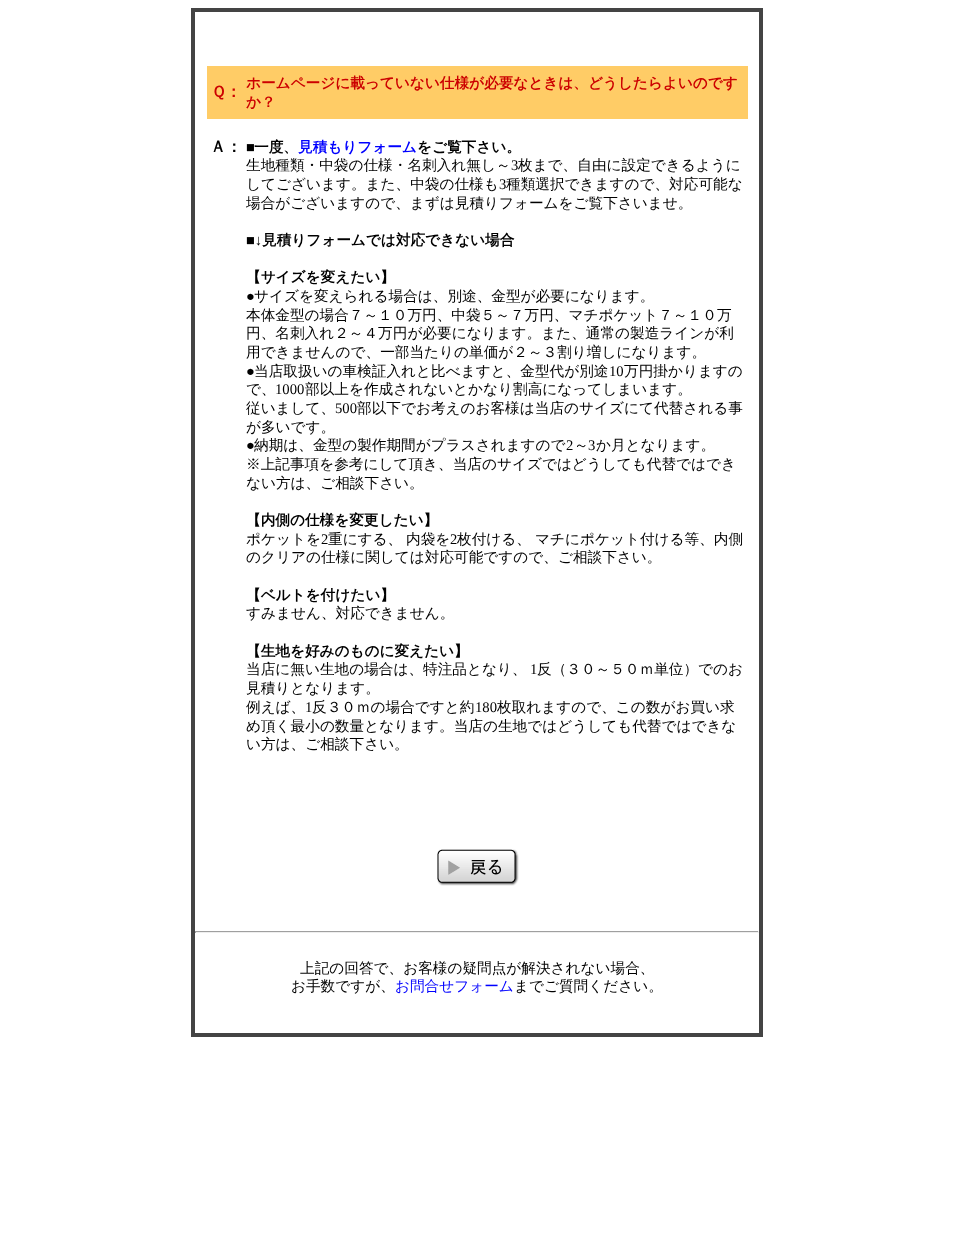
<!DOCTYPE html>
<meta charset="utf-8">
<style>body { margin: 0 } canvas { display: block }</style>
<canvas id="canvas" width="954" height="1248"></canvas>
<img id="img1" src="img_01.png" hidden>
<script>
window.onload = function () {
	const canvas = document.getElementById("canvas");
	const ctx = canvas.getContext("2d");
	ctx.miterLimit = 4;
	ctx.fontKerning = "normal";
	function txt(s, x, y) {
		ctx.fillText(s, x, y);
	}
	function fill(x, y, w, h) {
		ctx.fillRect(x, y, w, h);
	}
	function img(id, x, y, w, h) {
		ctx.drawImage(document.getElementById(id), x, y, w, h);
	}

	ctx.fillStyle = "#FFFFFF";
	fill(0, 0, 954, 1248);
	ctx.fillStyle = "#444444";
	fill(191, 8, 572, 1029);
	ctx.fillStyle = "#FFFFFF";
	fill(195, 12, 564, 1021);
	ctx.fillStyle = "#FFCC66";
	fill(207, 66, 541, 53);
	img("img1", 437, 849, 82, 37);
	ctx.fillStyle = "#9F9F9F";
	fill(195, 931, 564, 1);
	ctx.fillStyle = "#EEEEEE";
	fill(758, 931, 1, 2);
	fill(195, 932, 564, 1);
	ctx.fillStyle = "#9F9F9F";
	fill(195, 931, 1, 2);
	ctx.font = "bold 16px WenQuanYi Zen Hei";
	ctx.fillStyle = "#CC0000";
	txt("Ｑ：", 211, 97);
	ctx.font = "bold 14.65px WenQuanYi Zen Hei";
	txt("ホームページに載っていない仕様が必要なときは、どうしたらよいのです", 246, 88);
	txt("か？", 246, 107);
	ctx.font = "bold 16px WenQuanYi Zen Hei";
	ctx.fillStyle = "#000000";
	txt("Ａ：", 210, 152);
	ctx.font = "bold 14.65px Liberation Serif";
	txt("■", 246, 152);
	ctx.font = "bold 14.65px WenQuanYi Zen Hei";
	txt("一度、", 254, 152);
	ctx.fillStyle = "#0000FF";
	txt("見積もりフォーム", 298, 152);
	ctx.fillStyle = "#000000";
	txt("をご覧下さい。", 417, 152);
	ctx.font = "500 14.65px WenQuanYi Zen Hei";
	txt("生地種類・中袋の仕様・名刺入れ無し～", 246, 170);
	ctx.font = "14.65px Liberation Serif";
	txt("3", 511, 170);
	ctx.font = "500 14.65px WenQuanYi Zen Hei";
	txt("枚まで、自由に設定できるように", 518, 170);
	txt("してございます。また、中袋の仕様も", 246, 189);
	ctx.font = "14.65px Liberation Serif";
	txt("3", 499, 189);
	ctx.font = "500 14.65px WenQuanYi Zen Hei";
	txt("種類選択できますので、対応可能な", 506, 189);
	txt("場合がございますので、まずは見積りフォームをご覧下さいませ。", 246, 208);
	ctx.font = "bold 14.65px Liberation Serif";
	txt("■↓", 246, 245);
	ctx.font = "bold 14.65px WenQuanYi Zen Hei";
	txt("見積りフォームでは対応できない場合", 262, 245);
	txt("【サイズを変えたい】", 246, 282);
	ctx.font = "14.65px Liberation Serif";
	txt("●", 246, 301);
	ctx.font = "500 14.65px WenQuanYi Zen Hei";
	txt("サイズを変えられる場合は、別途、金型が必要になります。", 254, 301);
	txt("本体金型の場合７～１０万円、中袋５～７万円、マチポケット７～１０万", 246, 320);
	txt("円、名刺入れ２～４万円が必要になります。また、通常の製造ラインが利", 246, 338);
	txt("用できませんので、一部当たりの単価が２～３割り増しになります。", 246, 357);
	ctx.font = "14.65px Liberation Serif";
	txt("●", 246, 376);
	ctx.font = "500 14.65px WenQuanYi Zen Hei";
	txt("当店取扱いの車検証入れと比べますと、金型代が別途", 254, 376);
	ctx.font = "14.65px Liberation Serif";
	txt("10", 609, 376);
	ctx.font = "500 14.65px WenQuanYi Zen Hei";
	txt("万円掛かりますの", 624, 376);
	txt("で、", 246, 394);
	ctx.font = "14.65px Liberation Serif";
	txt("1000", 275, 394);
	ctx.font = "500 14.65px WenQuanYi Zen Hei";
	txt("部以上を作成されないとかなり割高になってしまいます。", 305, 394);
	txt("従いまして、", 246, 413);
	ctx.font = "14.65px Liberation Serif";
	txt("500", 335, 413);
	ctx.font = "500 14.65px WenQuanYi Zen Hei";
	txt("部以下でお考えのお客様は当店のサイズにて代替される事", 357, 413);
	txt("が多いです。", 246, 432);
	ctx.font = "14.65px Liberation Serif";
	txt("●", 246, 450);
	ctx.font = "500 14.65px WenQuanYi Zen Hei";
	txt("納期は、金型の製作期間がプラスされますので", 254, 450);
	ctx.font = "14.65px Liberation Serif";
	txt("2", 566, 450);
	ctx.font = "500 14.65px WenQuanYi Zen Hei";
	txt("～", 574, 450);
	ctx.font = "14.65px Liberation Serif";
	txt("3", 588, 450);
	ctx.font = "500 14.65px WenQuanYi Zen Hei";
	txt("か月となります。", 596, 450);
	txt("※上記事項を参考にして頂き、当店のサイズではどうしても代替ではでき", 246, 469);
	txt("ない方は、ご相談下さい。", 246, 488);
	ctx.font = "bold 14.65px WenQuanYi Zen Hei";
	txt("【内側の仕様を変更したい】", 246, 525);
	ctx.font = "500 14.65px WenQuanYi Zen Hei";
	txt("ポケットを", 246, 544);
	ctx.font = "14.65px Liberation Serif";
	txt("2", 321, 544);
	ctx.font = "500 14.65px WenQuanYi Zen Hei";
	txt("重にする、", 328, 544);
	txt("内袋を", 406, 544);
	ctx.font = "14.65px Liberation Serif";
	txt("2", 450, 544);
	ctx.font = "500 14.65px WenQuanYi Zen Hei";
	txt("枚付ける、", 457, 544);
	txt("マチにポケット付ける等、内側", 535, 544);
	txt("のクリアの仕様に関しては対応可能ですので、ご相談下さい。", 246, 562);
	ctx.font = "bold 14.65px WenQuanYi Zen Hei";
	txt("【ベルトを付けたい】", 246, 600);
	ctx.font = "500 14.65px WenQuanYi Zen Hei";
	txt("すみません、対応できません。", 246, 618);
	ctx.font = "bold 14.65px WenQuanYi Zen Hei";
	txt("【生地を好みのものに変えたい】", 246, 656);
	ctx.font = "500 14.65px WenQuanYi Zen Hei";
	txt("当店に無い生地の場合は、特注品となり、", 246, 674);
	ctx.font = "14.65px Liberation Serif";
	txt("1", 530, 674);
	ctx.font = "500 14.65px WenQuanYi Zen Hei";
	txt("反（３０～５０ｍ単位）でのお", 537, 674);
	txt("見積りとなります。", 246, 693);
	txt("例えば、", 246, 712);
	ctx.font = "14.65px Liberation Serif";
	txt("1", 305, 712);
	ctx.font = "500 14.65px WenQuanYi Zen Hei";
	txt("反３０ｍの場合ですと約", 312, 712);
	ctx.font = "14.65px Liberation Serif";
	txt("180", 475, 712);
	ctx.font = "500 14.65px WenQuanYi Zen Hei";
	txt("枚取れますので、この数がお買い求", 497, 712);
	txt("め頂く最小の数量となります。当店の生地ではどうしても代替ではできな", 246, 731);
	txt("い方は、ご相談下さい。", 246, 749);
	txt("上記の回答で、お客様の疑問点が解決されない場合、", 300, 973);
	txt("お手数ですが、", 291, 991);
	ctx.fillStyle = "#0000FF";
	txt("お問合せフォーム", 395, 991);
	ctx.fillStyle = "#000000";
	txt("までご質問ください。", 514, 991);
};
</script>
